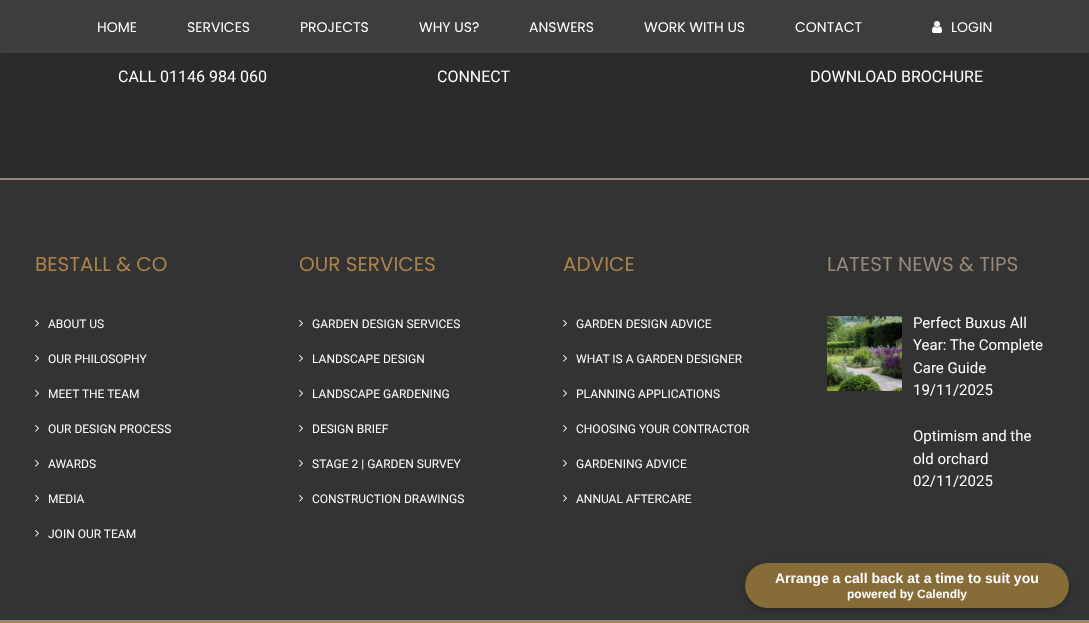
<!DOCTYPE html>
<meta charset="utf-8">
<style>body { margin: 0 } canvas { display: block }</style>
<canvas id="canvas" width="1089" height="623"></canvas>
<img id="img1" src="img_01.png" hidden>
<img id="img2" src="img_02.png" hidden>
<img id="img3" src="img_03.png" hidden>
<script>
window.onload = function () {
	const canvas = document.getElementById("canvas");
	const ctx = canvas.getContext("2d");
	ctx.miterLimit = 4;
	ctx.fontKerning = "normal";
	function txt(s, x, y) {
		ctx.fillText(s, x, y);
	}
	function fill(x, y, w, h) {
		ctx.fillRect(x, y, w, h);
	}
	function round(x, y, w, h, r) {
		ctx.beginPath();
		ctx.roundRect(x, y, w, h, r);
		ctx.fill();
	}
	function img(id, x, y, w, h) {
		ctx.drawImage(document.getElementById(id), x, y, w, h);
	}

	ctx.fillStyle = "#2B2B2B";
	fill(0, 0, 1089, 623);
	ctx.fillStyle = "rgba(0, 0, 0, 0.6)";
	ctx.filter = "blur(5px)";
	ctx.beginPath();
	ctx.rect(9, 14, 1072, 33);
	ctx.fill();
	ctx.filter = "none";
	ctx.fillStyle = "#3D3D3D";
	fill(0, 0, 1089, 53);
	img("img1", 932, 21, 10, 12);
	ctx.fillStyle = "#333333";
	fill(0, 180, 1089, 440);
	ctx.fillStyle = "#988879";
	fill(0, 178, 1089, 2);
	fill(0, 620, 1089, 2);
	img("img2", 35, 320, 4, 7);
	img("img2", 35, 355, 4, 7);
	img("img2", 35, 390, 4, 7);
	img("img2", 35, 425, 4, 7);
	img("img2", 35, 460, 4, 7);
	img("img2", 35, 495, 4, 7);
	img("img2", 35, 530, 4, 7);
	img("img2", 299, 320, 4, 7);
	img("img2", 299, 355, 4, 7);
	img("img2", 299, 390, 4, 7);
	img("img2", 299, 425, 4, 7);
	img("img2", 299, 460, 4, 7);
	img("img2", 299, 495, 4, 7);
	img("img2", 563, 320, 4, 7);
	img("img2", 563, 355, 4, 7);
	img("img2", 563, 390, 4, 7);
	img("img2", 563, 425, 4, 7);
	img("img2", 563, 460, 4, 7);
	img("img2", 563, 495, 4, 7);
	img("img3", 827, 316, 75, 75);
	ctx.fillStyle = "#AC834B";
	fill(0, 622, 1089, 1);
	ctx.fillStyle = "#303133";
	round(1035, 569, 32, 32, 2);
	ctx.fillStyle = "rgba(0, 0, 0, 0.25)";
	ctx.filter = "blur(2.5px)";
	ctx.beginPath();
	ctx.roundRect(745, 565, 324, 45, 22.5);
	ctx.fill();
	ctx.filter = "none";
	ctx.fillStyle = "#856C38";
	round(745, 563, 324, 45, 22.5);
	ctx.font = "14px Poppins";
	ctx.fillStyle = "#FFFFFF";
	txt("HOME", 97, 32);
	txt("SERVICES", 187, 32);
	txt("PROJECTS", 300, 32);
	txt("WHY US?", 419, 32);
	txt("ANSWERS", 529, 32);
	txt("WORK WITH US", 644, 32);
	txt("CONTACT", 795, 32);
	txt("LOGIN", 951, 32);
	ctx.font = "16px Roboto";
	txt("CALL 01146 984 060", 118, 82);
	txt("CONNECT", 437, 82);
	txt("DOWNLOAD BROCHURE", 810, 82);
	ctx.font = "20px Poppins";
	ctx.fillStyle = "#AC834B";
	txt("BESTALL & CO", 35, 271);
	ctx.font = "12px Roboto";
	ctx.fillStyle = "#FFFFFF";
	txt("ABOUT US", 48, 328);
	txt("OUR PHILOSOPHY", 48, 363);
	txt("MEET THE TEAM", 48, 398);
	txt("OUR DESIGN PROCESS", 48, 433);
	txt("AWARDS", 48, 468);
	txt("MEDIA", 48, 503);
	txt("JOIN OUR TEAM", 48, 538);
	ctx.font = "20px Poppins";
	ctx.fillStyle = "#AC834B";
	txt("OUR SERVICES", 299, 271);
	ctx.font = "12px Roboto";
	ctx.fillStyle = "#FFFFFF";
	txt("GARDEN DESIGN SERVICES", 312, 328);
	txt("LANDSCAPE DESIGN", 312, 363);
	txt("LANDSCAPE GARDENING", 312, 398);
	txt("DESIGN BRIEF", 312, 433);
	txt("STAGE 2 | GARDEN SURVEY", 312, 468);
	txt("CONSTRUCTION DRAWINGS", 312, 503);
	ctx.font = "20px Poppins";
	ctx.fillStyle = "#AC834B";
	txt("ADVICE", 563, 271);
	ctx.font = "12px Roboto";
	ctx.fillStyle = "#FFFFFF";
	txt("GARDEN DESIGN ADVICE", 576, 328);
	txt("WHAT IS A GARDEN DESIGNER", 576, 363);
	txt("PLANNING APPLICATIONS", 576, 398);
	txt("CHOOSING YOUR CONTRACTOR", 576, 433);
	txt("GARDENING ADVICE", 576, 468);
	txt("ANNUAL AFTERCARE", 576, 503);
	ctx.font = "20px Poppins";
	ctx.fillStyle = "#988879";
	txt("LATEST NEWS & TIPS", 827, 271);
	ctx.font = "15px Roboto";
	ctx.fillStyle = "#FFFFFF";
	txt("Perfect Buxus All", 913, 328);
	txt("Year: The Complete", 913, 350);
	txt("Care Guide", 913, 373);
	txt("19/11/2025", 913, 395);
	txt("Optimism and the", 913, 441);
	txt("old orchard", 913, 464);
	txt("02/11/2025", 913, 486);
	ctx.font = "bold 14px Liberation Sans";
	txt("Arrange a call back at a time to suit you", 775, 583);
	ctx.font = "bold 12px Liberation Sans";
	txt("powered by Calendly", 847, 598);
};
</script>
